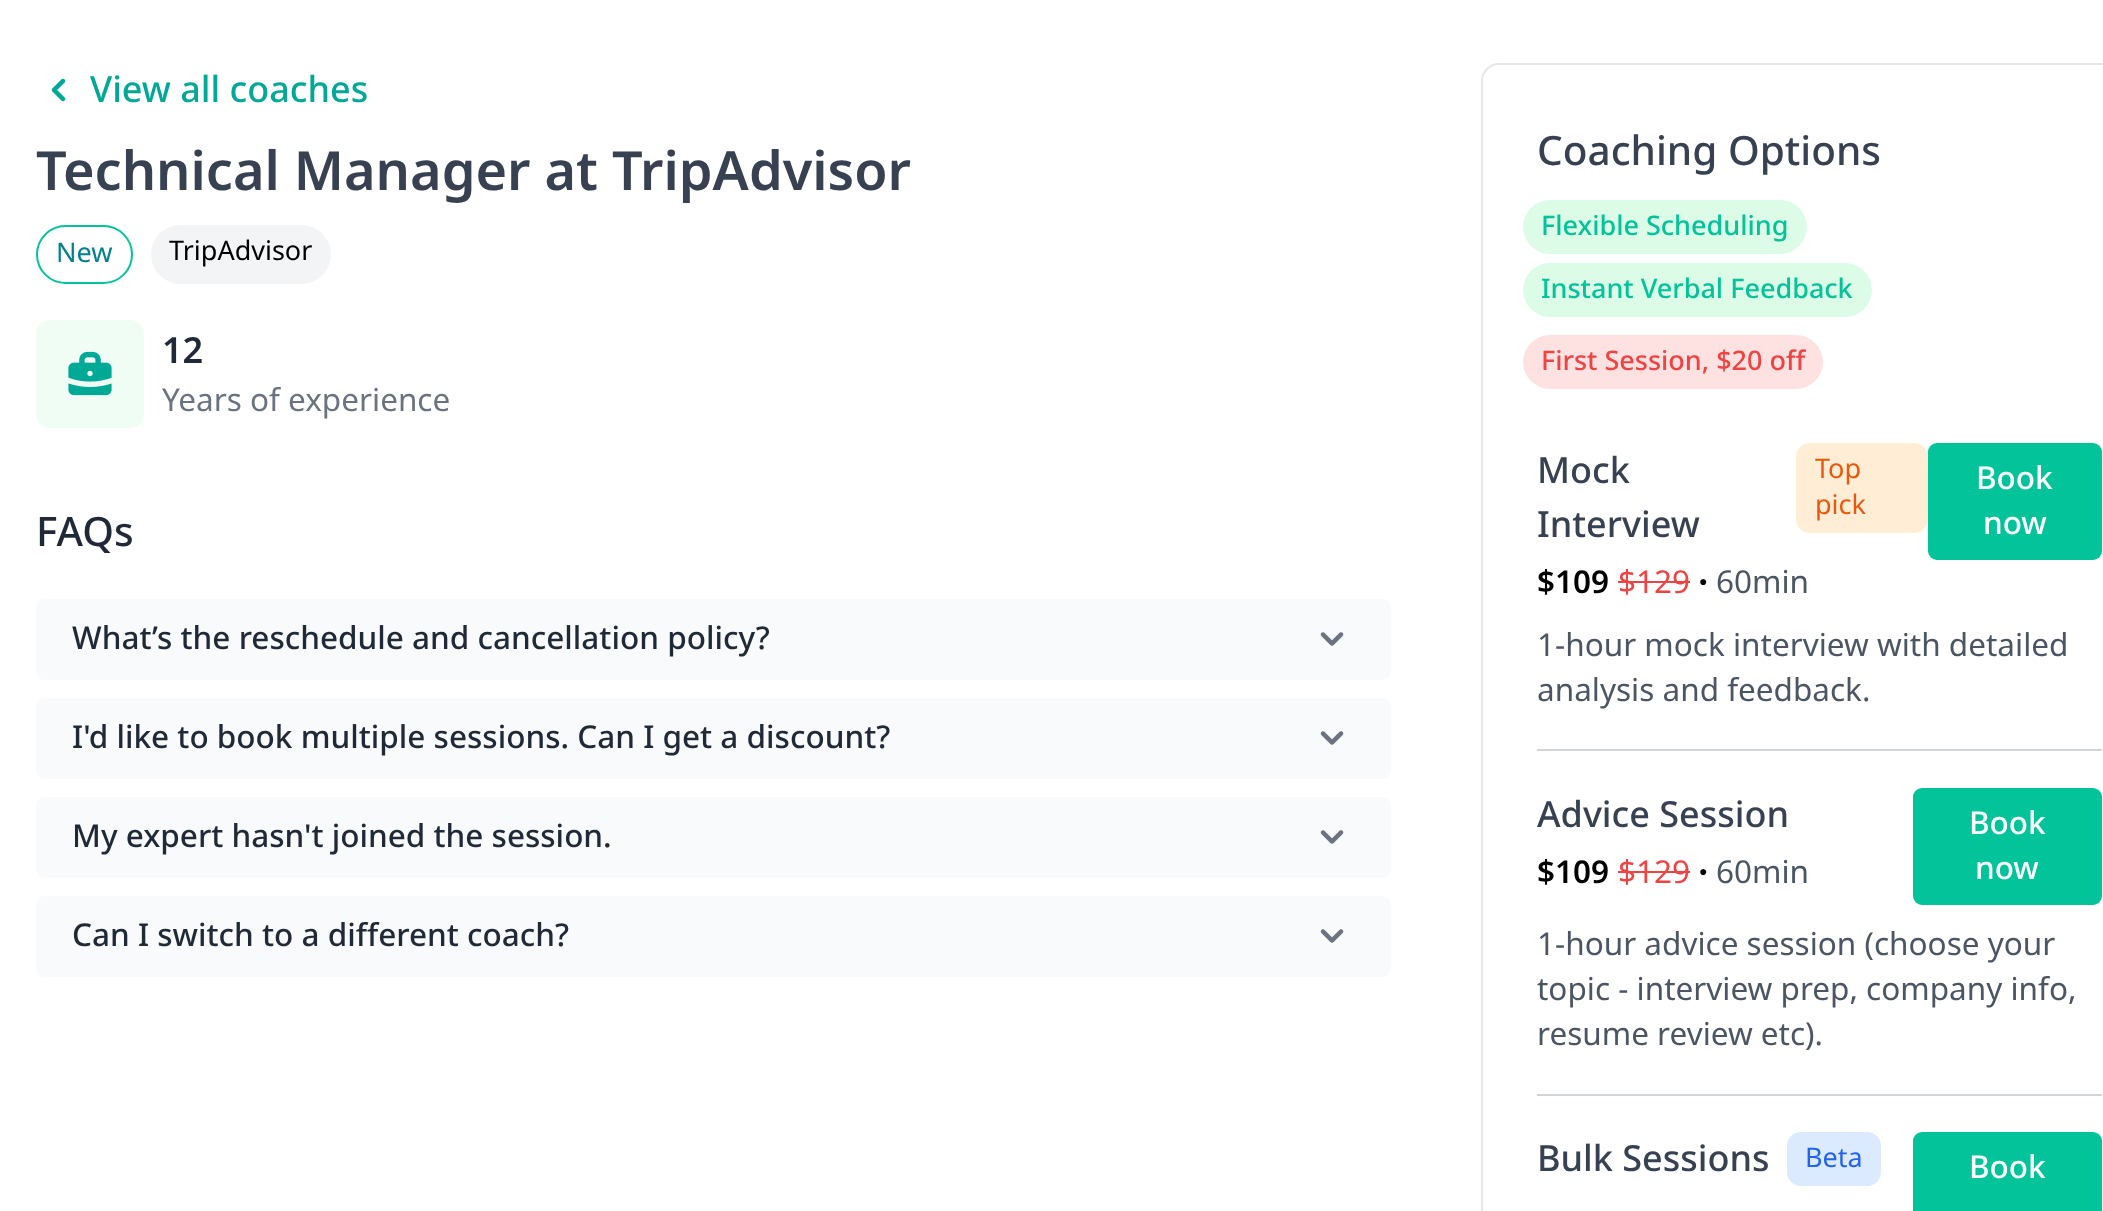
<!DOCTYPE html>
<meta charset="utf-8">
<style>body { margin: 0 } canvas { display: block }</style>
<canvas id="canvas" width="2103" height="1211"></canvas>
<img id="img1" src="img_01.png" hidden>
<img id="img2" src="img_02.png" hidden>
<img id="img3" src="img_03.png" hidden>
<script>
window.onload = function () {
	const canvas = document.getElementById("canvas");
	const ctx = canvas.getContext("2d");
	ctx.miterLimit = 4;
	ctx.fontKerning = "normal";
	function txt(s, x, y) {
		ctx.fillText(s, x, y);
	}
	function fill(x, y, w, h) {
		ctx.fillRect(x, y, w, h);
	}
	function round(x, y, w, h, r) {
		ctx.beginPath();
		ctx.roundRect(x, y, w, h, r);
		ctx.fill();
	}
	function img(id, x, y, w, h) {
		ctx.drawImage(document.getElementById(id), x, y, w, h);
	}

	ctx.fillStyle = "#FFFFFF";
	fill(0, 0, 2103, 1211);
	img("img1", 51, 78, 15, 24);
	ctx.beginPath();
	ctx.roundRect(37, 226, 95, 57, 28.5);
	ctx.strokeStyle = "#02C39A";
	ctx.lineWidth = 2;
	ctx.stroke();
	ctx.fillStyle = "#F3F4F6";
	round(151, 225, 180, 59, 29.5);
	ctx.fillStyle = "#F0FDF4";
	round(36, 320, 108, 108, 14);
	img("img2", 68, 351, 44, 45);
	ctx.fillStyle = "#F9FAFB";
	round(36, 599, 1355, 81, 9);
	img("img3", 1320, 632, 24, 14);
	round(36, 698, 1355, 81, 9);
	img("img3", 1320, 731, 24, 14);
	round(36, 797, 1355, 81, 9);
	img("img3", 1320, 830, 24, 14);
	round(36, 896, 1355, 81, 9);
	img("img3", 1320, 929, 24, 14);
	ctx.beginPath();
	ctx.roundRect(1482, 64, 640, 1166, 17);
	ctx.strokeStyle = "#E5E7EB";
	ctx.stroke();
	ctx.fillStyle = "#DCFCE7";
	round(1523, 200, 284, 54, 27);
	round(1523, 263, 349, 54, 27);
	ctx.fillStyle = "#FEE2E2";
	round(1523, 335, 300, 54, 27);
	ctx.fillStyle = "#FFEDD5";
	round(1796, 443, 132, 90, 14);
	ctx.fillStyle = "#EF4444";
	fill(1618, 581, 72, 2);
	ctx.fillStyle = "#02C39A";
	round(1928, 443, 174, 117, 9);
	ctx.fillStyle = "#D1D5DB";
	fill(1537, 749, 565, 2);
	ctx.fillStyle = "#EF4444";
	fill(1618, 871, 72, 2);
	ctx.fillStyle = "#02C39A";
	round(1913, 788, 189, 117, 9);
	ctx.fillStyle = "#D1D5DB";
	fill(1537, 1094, 565, 2);
	ctx.fillStyle = "#DBEAFE";
	round(1787, 1132, 94, 54, 14);
	ctx.fillStyle = "#02C39A";
	round(1913, 1132, 189, 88, 9);
	ctx.font = "500 36px Noto Sans";
	ctx.fillStyle = "#00A896";
	txt("View all coaches", 90, 102);
	ctx.font = "600 54px Noto Sans";
	ctx.fillStyle = "#374151";
	txt("Technical Manager at TripAdvisor", 36, 190);
	ctx.font = "27px Noto Sans";
	ctx.fillStyle = "#028090";
	txt("New", 56, 262);
	ctx.fillStyle = "#000000";
	txt("TripAdvisor", 169, 260);
	ctx.font = "600 36px Noto Sans";
	ctx.fillStyle = "#1F2937";
	txt("12", 162, 363);
	ctx.font = "31.5px Noto Sans";
	ctx.fillStyle = "#6B7280";
	txt("Years of experience", 162, 411);
	ctx.font = "500 40.5px Noto Sans";
	ctx.fillStyle = "#1F2937";
	txt("FAQs", 36, 546);
	ctx.font = "500 31.5px Noto Sans";
	txt("What’s the reschedule and cancellation policy?", 72, 649);
	txt("I'd like to book multiple sessions. Can I get a discount?", 72, 748);
	txt("My expert hasn't joined the session.", 72, 847);
	txt("Can I switch to a different coach?", 72, 946);
	ctx.font = "500 40.5px Noto Sans";
	ctx.fillStyle = "#374151";
	txt("Coaching Options", 1537, 165);
	ctx.font = "500 27px Noto Sans";
	ctx.fillStyle = "#02C39A";
	txt("Flexible Scheduling", 1541, 235);
	txt("Instant Verbal Feedback", 1541, 298);
	ctx.fillStyle = "#EF4444";
	txt("First Session, $20 off", 1541, 370);
	ctx.font = "500 36px Noto Sans";
	ctx.fillStyle = "#374151";
	txt("Mock", 1537, 483);
	txt("Interview", 1537, 537);
	ctx.font = "27px Noto Sans";
	ctx.fillStyle = "#EA580C";
	txt("Top", 1815, 478);
	txt("pick", 1815, 514);
	ctx.font = "600 31.5px Noto Sans";
	ctx.fillStyle = "#000000";
	txt("$109", 1537, 593);
	ctx.font = "31.5px Noto Sans";
	ctx.fillStyle = "#EF4444";
	txt("$129", 1618, 593);
	ctx.font = "14px Liberation Sans";
	ctx.fillStyle = "#000000";
	txt("●", 1699, 586);
	ctx.font = "31.5px Noto Sans";
	ctx.fillStyle = "#4B5563";
	txt("60min", 1716, 593);
	ctx.font = "500 31.5px Noto Sans";
	ctx.fillStyle = "#FFFFFF";
	txt("Book", 1976, 489);
	txt("now", 1983, 534);
	ctx.font = "31.5px Noto Sans";
	ctx.fillStyle = "#4B5563";
	txt("1-hour mock interview with detailed", 1537, 656);
	txt("analysis and feedback.", 1537, 701);
	ctx.font = "500 36px Noto Sans";
	ctx.fillStyle = "#374151";
	txt("Advice Session", 1537, 827);
	ctx.font = "600 31.5px Noto Sans";
	ctx.fillStyle = "#000000";
	txt("$109", 1537, 883);
	ctx.font = "31.5px Noto Sans";
	ctx.fillStyle = "#EF4444";
	txt("$129", 1618, 883);
	ctx.font = "14px Liberation Sans";
	ctx.fillStyle = "#000000";
	txt("●", 1699, 876);
	ctx.font = "31.5px Noto Sans";
	ctx.fillStyle = "#4B5563";
	txt("60min", 1716, 883);
	ctx.font = "500 31.5px Noto Sans";
	ctx.fillStyle = "#FFFFFF";
	txt("Book", 1969, 834);
	txt("now", 1975, 879);
	ctx.font = "31.5px Noto Sans";
	ctx.fillStyle = "#4B5563";
	txt("1-hour advice session (choose your", 1537, 955);
	txt("topic - interview prep, company info,", 1537, 1000);
	txt("resume review etc).", 1537, 1045);
	ctx.font = "500 36px Noto Sans";
	ctx.fillStyle = "#374151";
	txt("Bulk Sessions", 1537, 1171);
	ctx.font = "27px Noto Sans";
	ctx.fillStyle = "#2563EB";
	txt("Beta", 1805, 1167);
	ctx.font = "500 31.5px Noto Sans";
	ctx.fillStyle = "#FFFFFF";
	txt("Book", 1969, 1178);
};
</script>
